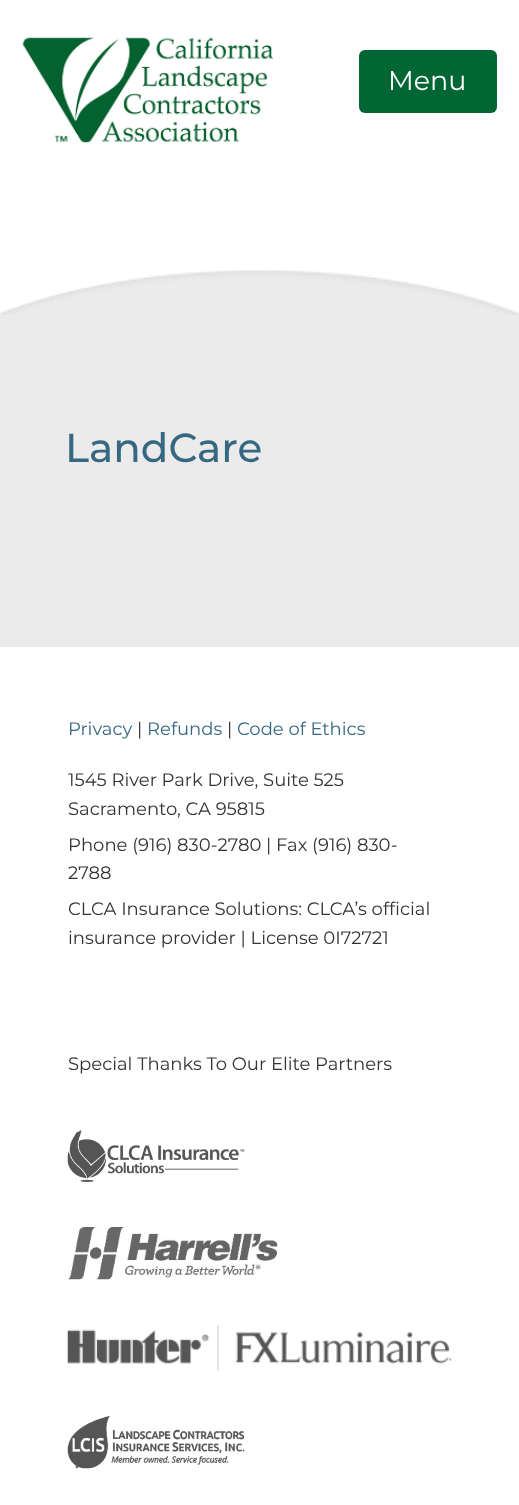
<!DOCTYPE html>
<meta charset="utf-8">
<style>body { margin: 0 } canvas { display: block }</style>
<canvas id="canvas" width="519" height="1505"></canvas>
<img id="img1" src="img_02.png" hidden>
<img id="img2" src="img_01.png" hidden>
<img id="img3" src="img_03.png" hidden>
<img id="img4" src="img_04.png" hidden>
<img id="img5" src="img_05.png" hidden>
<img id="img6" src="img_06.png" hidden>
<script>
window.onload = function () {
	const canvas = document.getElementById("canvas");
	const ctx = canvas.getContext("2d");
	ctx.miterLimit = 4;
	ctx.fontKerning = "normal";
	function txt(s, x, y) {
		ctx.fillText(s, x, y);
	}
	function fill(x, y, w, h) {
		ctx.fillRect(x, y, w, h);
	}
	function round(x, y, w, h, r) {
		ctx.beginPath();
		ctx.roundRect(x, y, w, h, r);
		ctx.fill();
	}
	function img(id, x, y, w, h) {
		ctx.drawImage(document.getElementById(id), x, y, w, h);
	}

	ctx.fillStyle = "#ECEBEB";
	fill(0, 0, 519, 1505);
	ctx.fillStyle = "#FFFFFF";
	fill(0, 0, 519, 122);
	img("img1", 0, 122, 519, 193);
	img("img2", 22, 37, 251, 106);
	ctx.fillStyle = "#006633";
	round(359, 50, 138, 63, 6);
	ctx.fillStyle = "#FFFFFF";
	fill(0, 647, 519, 858);
	img("img3", 67, 1129, 178, 53);
	img("img4", 68, 1227, 210, 53);
	img("img5", 67, 1324, 385, 47);
	img("img6", 67, 1416, 178, 53);
	ctx.font = "27px Montserrat";
	txt("Menu", 388, 90);
	ctx.font = "500 40.5px Montserrat";
	ctx.fillStyle = "#376882";
	txt("LandCare", 65, 462);
	ctx.font = "18px Montserrat";
	txt("Privacy", 68, 735);
	ctx.fillStyle = "#333333";
	txt("|", 137, 735);
	ctx.fillStyle = "#376882";
	txt("Refunds", 147, 735);
	ctx.fillStyle = "#333333";
	txt("|", 227, 735);
	ctx.fillStyle = "#376882";
	txt("Code of Ethics", 237, 735);
	ctx.fillStyle = "#333333";
	txt("1545 River Park Drive, Suite 525", 68, 786);
	txt("Sacramento, CA 95815", 68, 815);
	txt("Phone (916) 830-2780 | Fax (916) 830-", 68, 851);
	txt("2788", 68, 879);
	txt("CLCA Insurance Solutions: CLCA’s official", 68, 915);
	txt("insurance provider | License 0I72721", 68, 944);
	txt("Special Thanks To Our Elite Partners", 68, 1070);
};
</script>
